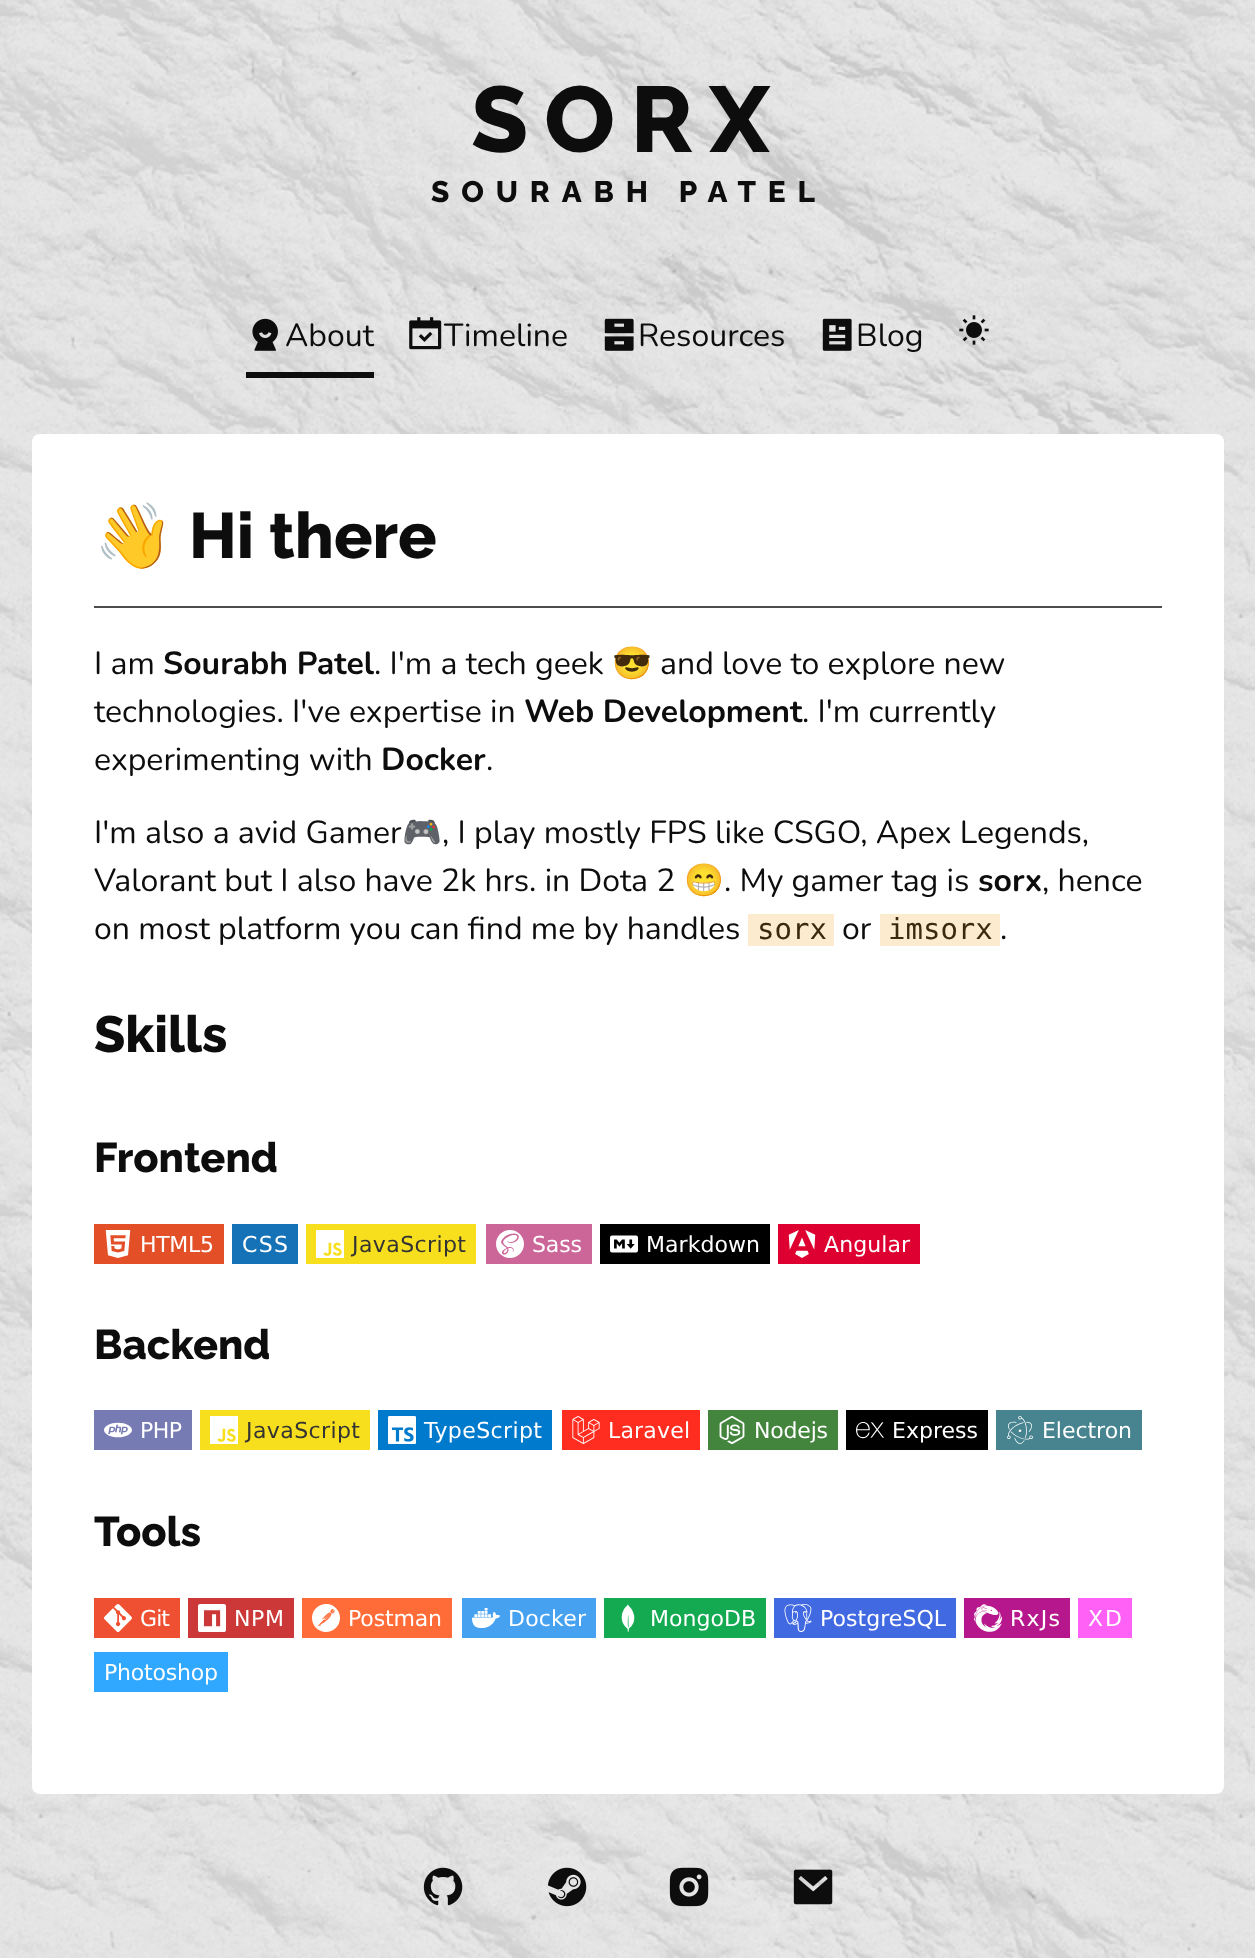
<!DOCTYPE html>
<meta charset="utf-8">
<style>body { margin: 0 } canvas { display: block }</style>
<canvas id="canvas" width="1255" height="1958"></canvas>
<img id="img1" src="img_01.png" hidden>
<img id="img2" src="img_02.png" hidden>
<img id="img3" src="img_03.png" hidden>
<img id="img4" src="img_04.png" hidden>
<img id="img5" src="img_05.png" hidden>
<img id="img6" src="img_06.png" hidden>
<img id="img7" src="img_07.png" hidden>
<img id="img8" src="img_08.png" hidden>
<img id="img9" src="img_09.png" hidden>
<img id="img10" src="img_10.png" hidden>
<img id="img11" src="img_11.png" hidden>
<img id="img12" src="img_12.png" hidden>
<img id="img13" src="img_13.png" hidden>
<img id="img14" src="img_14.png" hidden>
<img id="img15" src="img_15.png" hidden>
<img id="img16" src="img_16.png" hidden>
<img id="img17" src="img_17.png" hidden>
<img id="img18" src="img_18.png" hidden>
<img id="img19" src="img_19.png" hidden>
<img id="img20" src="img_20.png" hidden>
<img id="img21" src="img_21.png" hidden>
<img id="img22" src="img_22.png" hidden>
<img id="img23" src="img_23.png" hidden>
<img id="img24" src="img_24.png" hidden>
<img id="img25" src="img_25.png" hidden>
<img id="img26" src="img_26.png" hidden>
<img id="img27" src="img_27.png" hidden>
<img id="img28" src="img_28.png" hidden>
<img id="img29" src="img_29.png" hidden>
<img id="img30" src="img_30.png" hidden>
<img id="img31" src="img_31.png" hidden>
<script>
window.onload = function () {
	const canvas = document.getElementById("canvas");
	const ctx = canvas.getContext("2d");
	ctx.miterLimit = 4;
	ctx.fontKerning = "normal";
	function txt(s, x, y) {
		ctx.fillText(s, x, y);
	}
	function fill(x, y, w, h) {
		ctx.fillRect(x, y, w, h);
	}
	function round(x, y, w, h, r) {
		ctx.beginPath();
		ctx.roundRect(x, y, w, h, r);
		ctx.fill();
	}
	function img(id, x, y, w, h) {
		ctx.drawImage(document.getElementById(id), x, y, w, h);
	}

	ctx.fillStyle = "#FFFFFF";
	fill(0, 0, 1255, 1958);
	img("img1", 0, 0, 1255, 1958);
	img("img2", 252, 318, 26, 33);
	ctx.fillStyle = "#0D0D0D";
	fill(246, 372, 128, 6);
	img("img3", 409, 317, 33, 33);
	img("img4", 604, 318, 30, 33);
	img("img5", 822, 318, 30, 33);
	img("img6", 959, 315, 30, 30);
	ctx.fillStyle = "#FFFFFF";
	round(32, 434, 1192, 1360, 8);
	ctx.fillStyle = "#4D4D4D";
	fill(94, 606, 1068, 2);
	img("img7", 94, 1224, 130, 40);
	img("img8", 232, 1224, 66, 40);
	img("img9", 306, 1224, 170, 40);
	img("img10", 486, 1224, 106, 40);
	img("img11", 600, 1224, 170, 40);
	img("img12", 778, 1224, 142, 40);
	img("img13", 94, 1410, 98, 40);
	img("img9", 200, 1410, 170, 40);
	img("img14", 378, 1410, 174, 40);
	img("img15", 562, 1410, 138, 40);
	img("img16", 708, 1410, 130, 40);
	img("img17", 846, 1410, 142, 40);
	img("img18", 996, 1410, 146, 40);
	img("img19", 94, 1598, 86, 40);
	img("img20", 188, 1598, 106, 40);
	img("img21", 302, 1598, 150, 40);
	img("img22", 462, 1598, 134, 40);
	img("img23", 604, 1598, 162, 40);
	img("img24", 774, 1598, 182, 40);
	img("img25", 964, 1598, 106, 40);
	img("img26", 1078, 1598, 54, 40);
	img("img27", 94, 1652, 134, 40);
	img("img28", 423, 1867, 40, 39);
	img("img29", 547, 1867, 40, 40);
	img("img30", 669, 1867, 40, 40);
	img("img31", 793, 1869, 40, 36);
	ctx.letterSpacing = "16px";
	ctx.font = "100 93px Raleway";
	ctx.fillStyle = "#0D0D0D";
	txt("SORX", 471, 152);
	ctx.letterSpacing = "11.9px";
	ctx.font = "100 29.75px Raleway";
	txt("SOURABH PATEL", 431, 202);
	ctx.letterSpacing = "0px";
	ctx.font = "200 32px Nunito";
	txt("About", 285, 346);
	txt("Timeline", 444, 346);
	txt("Resources", 638, 346);
	txt("Blog", 856, 346);
	ctx.font = "bold 64px Noto Color Emoji";
	txt("👋", 94, 558);
	ctx.font = "100 64px Raleway";
	txt("Hi there", 189, 558);
	ctx.font = "200 32px Nunito";
	txt("I am", 94, 674);
	ctx.font = "200 32px 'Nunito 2'";
	txt("Sourabh Patel", 163, 674);
	ctx.font = "200 32px Nunito";
	txt(". I'm a tech geek", 374, 674);
	ctx.font = "32px Noto Color Emoji";
	txt("😎", 612, 674);
	ctx.font = "200 32px Nunito";
	txt("and love to explore new", 660, 674);
	txt("technologies. I've expertise in", 94, 722);
	ctx.font = "200 32px 'Nunito 2'";
	txt("Web Development", 524, 722);
	ctx.font = "200 32px Nunito";
	txt(". I'm currently", 802, 722);
	txt("experimenting with", 94, 770);
	ctx.font = "200 32px 'Nunito 2'";
	txt("Docker", 381, 770);
	ctx.font = "200 32px Nunito";
	txt(".", 486, 770);
	txt("I'm also a avid Gamer", 94, 843);
	ctx.font = "32px Noto Color Emoji";
	txt("🎮", 402, 843);
	ctx.font = "200 32px Nunito";
	txt(", I play mostly FPS like CSGO, Apex Legends,", 442, 843);
	txt("Valorant but I also have 2k hrs. in Dota 2", 94, 891);
	ctx.font = "32px Noto Color Emoji";
	txt("😁", 684, 891);
	ctx.font = "200 32px Nunito";
	txt(". My gamer tag is", 724, 891);
	ctx.font = "200 32px 'Nunito 2'";
	txt("sorx", 978, 891);
	ctx.font = "200 32px Nunito";
	txt(", hence", 1042, 891);
	txt("on most platform you can find me by handles", 94, 939);
	ctx.font = "29px DejaVu Sans Mono";
	txt("sorx", 757, 939);
	ctx.fillStyle = "rgba(245, 157, 15, 0.2)";
	fill(748, 914, 86, 32);
	ctx.font = "200 32px Nunito";
	ctx.fillStyle = "#0D0D0D";
	txt("or", 842, 939);
	ctx.font = "29px DejaVu Sans Mono";
	txt("imsorx", 888, 939);
	ctx.fillStyle = "rgba(245, 157, 15, 0.2)";
	fill(880, 914, 120, 32);
	ctx.font = "200 32px Nunito";
	ctx.fillStyle = "#0D0D0D";
	txt(".", 1000, 939);
	ctx.font = "100 51px Raleway";
	txt("Skills", 94, 1052);
	ctx.font = "100 41.5px Raleway";
	txt("Frontend", 94, 1172);
	txt("Backend", 94, 1359);
	txt("Tools", 94, 1546);
};
</script>
